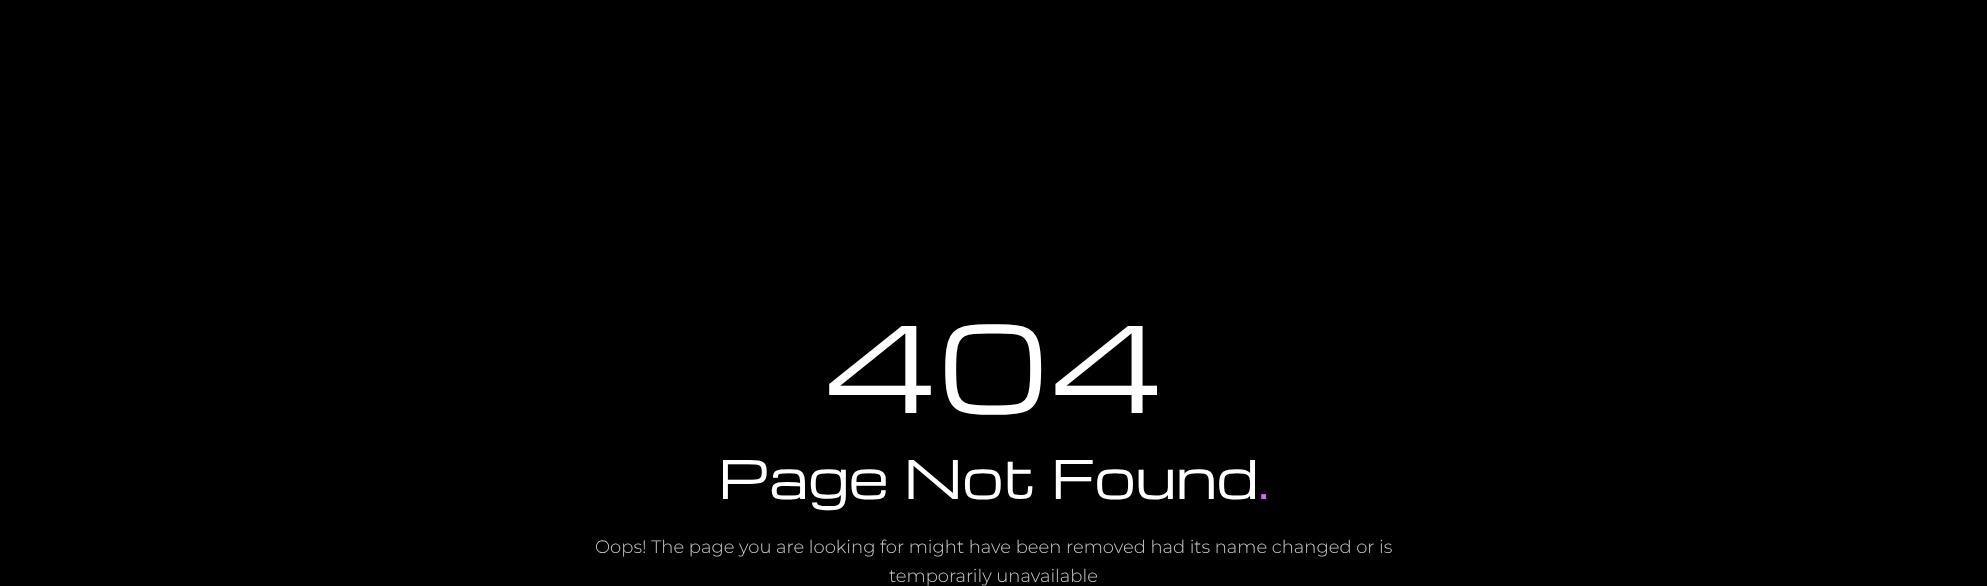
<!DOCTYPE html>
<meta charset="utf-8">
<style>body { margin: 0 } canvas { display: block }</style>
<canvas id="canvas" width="1987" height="586"></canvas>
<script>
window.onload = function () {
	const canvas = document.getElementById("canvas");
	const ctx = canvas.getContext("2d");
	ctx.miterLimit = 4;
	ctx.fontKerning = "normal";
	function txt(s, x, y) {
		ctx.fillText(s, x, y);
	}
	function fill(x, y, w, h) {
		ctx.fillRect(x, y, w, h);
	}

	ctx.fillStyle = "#000000";
	fill(0, 0, 1987, 586);
	ctx.font = "116px Michroma";
	ctx.fillStyle = "#FFFFFF";
	txt("404", 822, 413);
	ctx.font = "52px Michroma";
	txt("Page Not Found", 718, 499);
	ctx.fillStyle = "#D16AFF";
	txt(".", 1258, 499);
	ctx.font = "300 18px Montserrat";
	ctx.fillStyle = "#C8C8C8";
	txt("Oops! The page you are looking for might have been removed had its name changed or is", 595, 553);
	txt("temporarily unavailable", 889, 582);
};
</script>
